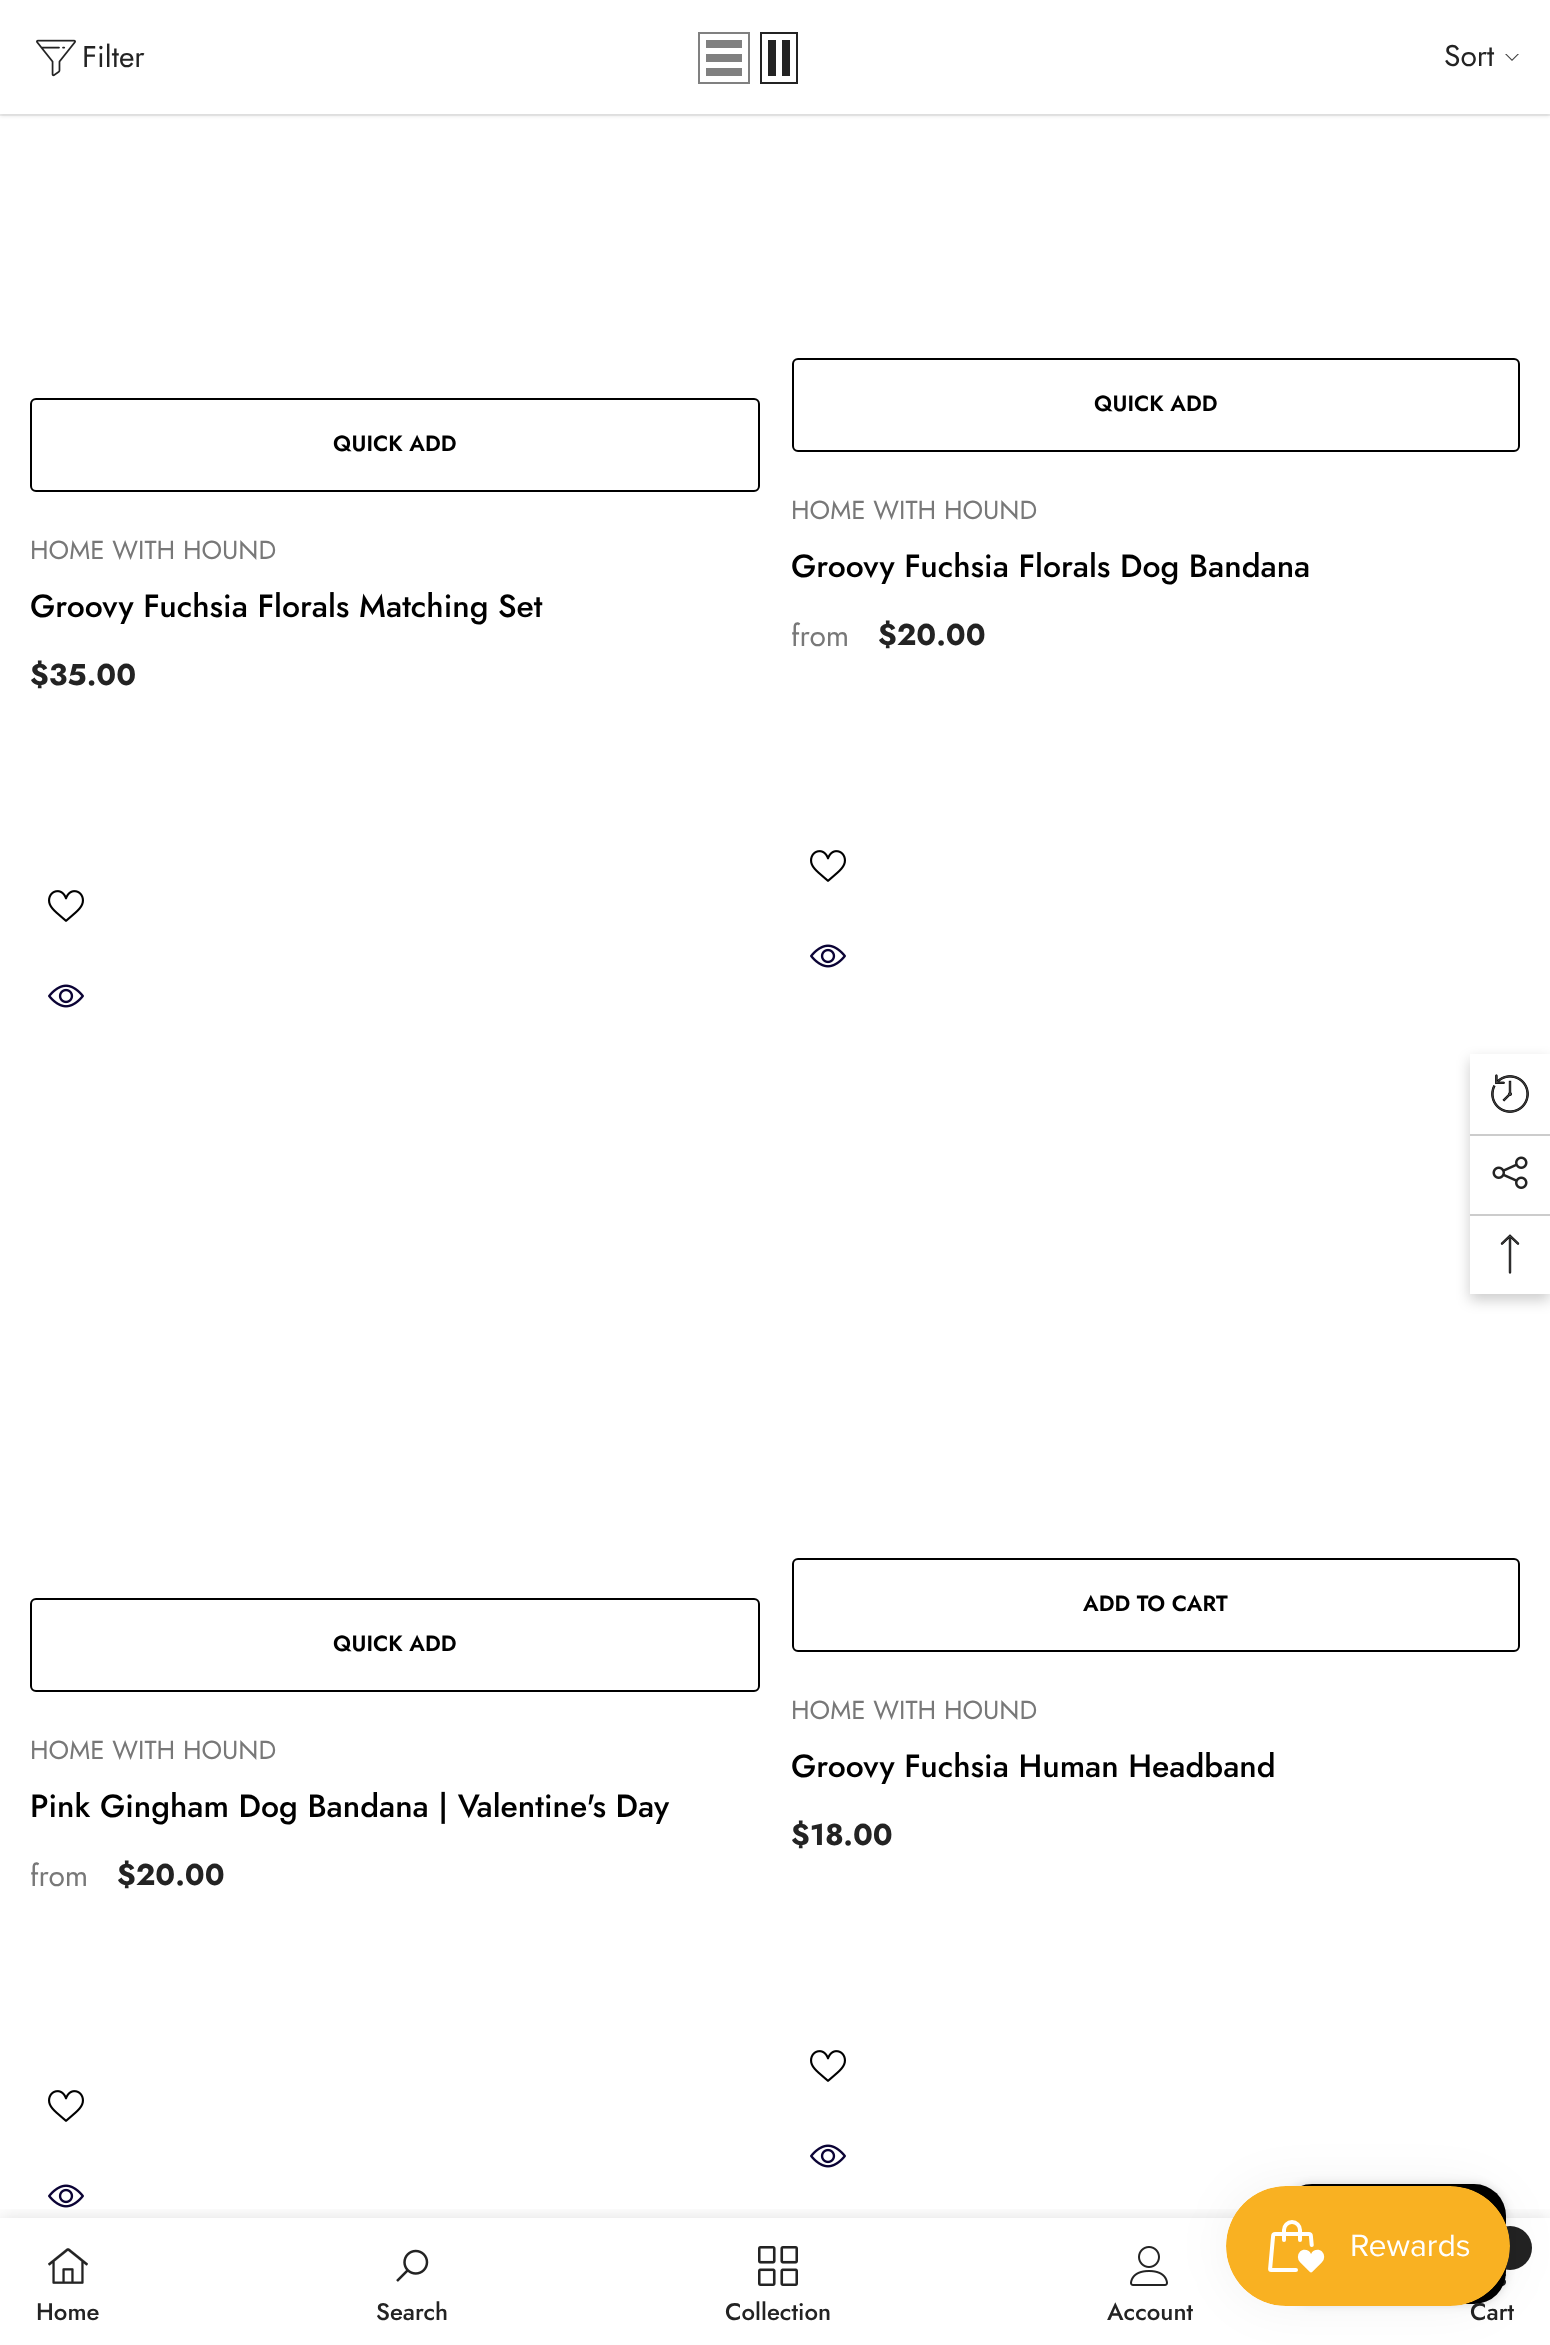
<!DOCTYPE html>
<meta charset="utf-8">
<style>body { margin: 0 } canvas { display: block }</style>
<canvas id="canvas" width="1550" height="2345"></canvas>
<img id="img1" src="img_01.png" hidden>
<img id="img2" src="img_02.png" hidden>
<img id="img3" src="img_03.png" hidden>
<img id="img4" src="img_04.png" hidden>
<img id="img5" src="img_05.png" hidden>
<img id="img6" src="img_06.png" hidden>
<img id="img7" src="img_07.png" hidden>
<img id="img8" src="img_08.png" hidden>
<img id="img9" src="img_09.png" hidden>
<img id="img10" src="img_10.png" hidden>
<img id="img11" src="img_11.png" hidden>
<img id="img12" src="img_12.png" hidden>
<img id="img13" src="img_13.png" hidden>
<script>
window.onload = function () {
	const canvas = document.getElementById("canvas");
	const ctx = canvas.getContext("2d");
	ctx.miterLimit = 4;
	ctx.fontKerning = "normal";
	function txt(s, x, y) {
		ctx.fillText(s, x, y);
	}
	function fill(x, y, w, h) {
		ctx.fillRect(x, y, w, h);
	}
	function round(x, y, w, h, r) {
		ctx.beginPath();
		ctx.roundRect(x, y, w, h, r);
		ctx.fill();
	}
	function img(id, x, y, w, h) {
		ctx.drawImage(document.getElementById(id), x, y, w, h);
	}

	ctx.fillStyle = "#FFFFFF";
	fill(0, 0, 1550, 2345);
	ctx.fillStyle = "rgba(0, 0, 0, 0.1)";
	ctx.filter = "blur(2px)";
	ctx.beginPath();
	ctx.rect(0, 2, 1550, 114);
	ctx.fill();
	ctx.filter = "none";
	ctx.strokeStyle = "rgba(0, 0, 0, 0.06)";
	ctx.lineWidth = 2;
	ctx.strokeRect(-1, -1, 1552, 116);
	ctx.fillStyle = "#FFFFFF";
	fill(0, 0, 1550, 114);
	img("img1", 36, 39, 40, 38);
	ctx.strokeStyle = "#808080";
	ctx.strokeRect(699, 33, 50, 50);
	ctx.fillStyle = "#808080";
	fill(706, 68, 36, 8);
	fill(706, 54, 36, 8);
	fill(706, 40, 36, 8);
	ctx.strokeStyle = "#232323";
	ctx.strokeRect(761, 33, 36, 50);
	ctx.fillStyle = "#232323";
	fill(782, 40, 8, 36);
	fill(768, 40, 8, 36);
	img("img2", 1505, 54, 14, 7);
	ctx.beginPath();
	ctx.roundRect(31, 399, 728, 92, 5);
	ctx.strokeStyle = "#000000";
	ctx.stroke();
	ctx.beginPath();
	ctx.roundRect(793, 359, 726, 92, 5);
	ctx.stroke();
	img("img3", 48, 890, 36, 32);
	img("img4", 48, 984, 36, 24);
	ctx.beginPath();
	ctx.roundRect(31, 1599, 728, 92, 5);
	ctx.stroke();
	img("img3", 810, 850, 36, 32);
	img("img4", 810, 944, 36, 24);
	ctx.beginPath();
	ctx.roundRect(793, 1559, 726, 92, 5);
	ctx.stroke();
	img("img3", 48, 2090, 36, 32);
	img("img4", 48, 2184, 36, 24);
	img("img3", 810, 2050, 36, 32);
	img("img4", 810, 2144, 36, 24);
	ctx.save();
	ctx.beginPath();
	ctx.rect(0, 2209, 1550, 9);
	ctx.clip();
	ctx.fillStyle = "rgba(0, 0, 0, 0.12)";
	ctx.filter = "blur(9px)";
	ctx.beginPath();
	ctx.rect(0, 2218, 1550, 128);
	ctx.fill();
	ctx.filter = "none";
	ctx.restore();
	img("img5", 48, 2248, 40, 36);
	img("img6", 396, 2249, 33, 33);
	img("img7", 758, 2246, 40, 40);
	img("img8", 1130, 2246, 38, 40);
	ctx.beginPath();
	ctx.arc(1510, 2248, 22, 0, Math.PI * 2);
	ctx.fill();
	img("img9", 1502, 2274, 4, 12);
	ctx.save();
	ctx.beginPath();
	ctx.moveTo(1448, 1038);
	ctx.lineTo(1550, 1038);
	ctx.lineTo(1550, 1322);
	ctx.lineTo(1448, 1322);
	ctx.closePath();
	ctx.moveTo(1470, 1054);
	ctx.lineTo(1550, 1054);
	ctx.lineTo(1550, 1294);
	ctx.lineTo(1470, 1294);
	ctx.closePath();
	ctx.clip("evenodd");
	ctx.fillStyle = "rgba(0, 0, 0, 0.2)";
	ctx.filter = "blur(7px)";
	ctx.beginPath();
	ctx.rect(1470, 1060, 80, 240);
	ctx.fill();
	ctx.filter = "none";
	ctx.restore();
	img("img10", 1491, 1074, 38, 39);
	ctx.fillStyle = "#CCCCCC";
	fill(1470, 1134, 80, 2);
	img("img11", 1492, 1156, 36, 33);
	fill(1470, 1214, 80, 2);
	img("img12", 1500, 1234, 20, 40);
	ctx.fillStyle = "rgba(0, 0, 0, 0.15)";
	ctx.filter = "blur(5px)";
	ctx.beginPath();
	ctx.roundRect(1280, 2184, 226, 120, 32);
	ctx.fill();
	ctx.filter = "none";
	ctx.font = "30px Jost";
	ctx.fillStyle = "#232323";
	txt("Filter", 82, 67);
	txt("Sort", 1444, 66);
	ctx.font = "600 22px Jost";
	ctx.fillStyle = "#000000";
	txt("QUICK ADD", 333, 451);
	ctx.font = "26px Jost";
	ctx.fillStyle = "#787878";
	txt("HOME WITH HOUND", 30, 559);
	ctx.font = "500 32px Jost";
	ctx.fillStyle = "#000000";
	txt("Groovy Fuchsia Florals Matching Set", 30, 617);
	ctx.font = "bold 30px Jost";
	ctx.fillStyle = "#232323";
	txt("$35.00", 30, 685);
	ctx.font = "600 22px Jost";
	ctx.fillStyle = "#000000";
	txt("QUICK ADD", 1094, 411);
	ctx.font = "26px Jost";
	ctx.fillStyle = "#787878";
	txt("HOME WITH HOUND", 791, 519);
	ctx.font = "500 32px Jost";
	ctx.fillStyle = "#000000";
	txt("Groovy Fuchsia Florals Dog Bandana", 791, 577);
	ctx.font = "30px Jost";
	ctx.fillStyle = "#787878";
	txt("from", 791, 646);
	ctx.font = "bold 30px Jost";
	ctx.fillStyle = "#232323";
	txt("$20.00", 878, 645);
	ctx.font = "600 22px Jost";
	ctx.fillStyle = "#000000";
	txt("QUICK ADD", 333, 1651);
	ctx.font = "26px Jost";
	ctx.fillStyle = "#787878";
	txt("HOME WITH HOUND", 30, 1759);
	ctx.font = "500 32px Jost";
	ctx.fillStyle = "#000000";
	txt("Pink Gingham Dog Bandana | Valentine's Day", 30, 1817);
	ctx.font = "30px Jost";
	ctx.fillStyle = "#787878";
	txt("from", 30, 1886);
	ctx.font = "bold 30px Jost";
	ctx.fillStyle = "#232323";
	txt("$20.00", 117, 1885);
	ctx.font = "600 22px Jost";
	ctx.fillStyle = "#000000";
	txt("ADD TO CART", 1083, 1611);
	ctx.font = "26px Jost";
	ctx.fillStyle = "#787878";
	txt("HOME WITH HOUND", 791, 1719);
	ctx.font = "500 32px Jost";
	ctx.fillStyle = "#000000";
	txt("Groovy Fuchsia Human Headband", 791, 1777);
	ctx.font = "bold 30px Jost";
	ctx.fillStyle = "#232323";
	txt("$18.00", 791, 1845);
	ctx.font = "500 24px Jost";
	txt("Home", 36, 2320);
	txt("Search", 376, 2320);
	txt("Collection", 725, 2320);
	txt("Account", 1107, 2320);
	txt("Cart", 1470, 2320);
	ctx.fillStyle = "#000000";
	round(1280, 2184, 226, 120, 32);
	ctx.fillStyle = "rgba(0, 0, 0, 0.05)";
	ctx.filter = "blur(25px)";
	ctx.beginPath();
	ctx.roundRect(1226, 2186, 284, 120, 60);
	ctx.fill();
	ctx.filter = "none";
	img("img13", 1226, 2186, 284, 120);
};
</script>
